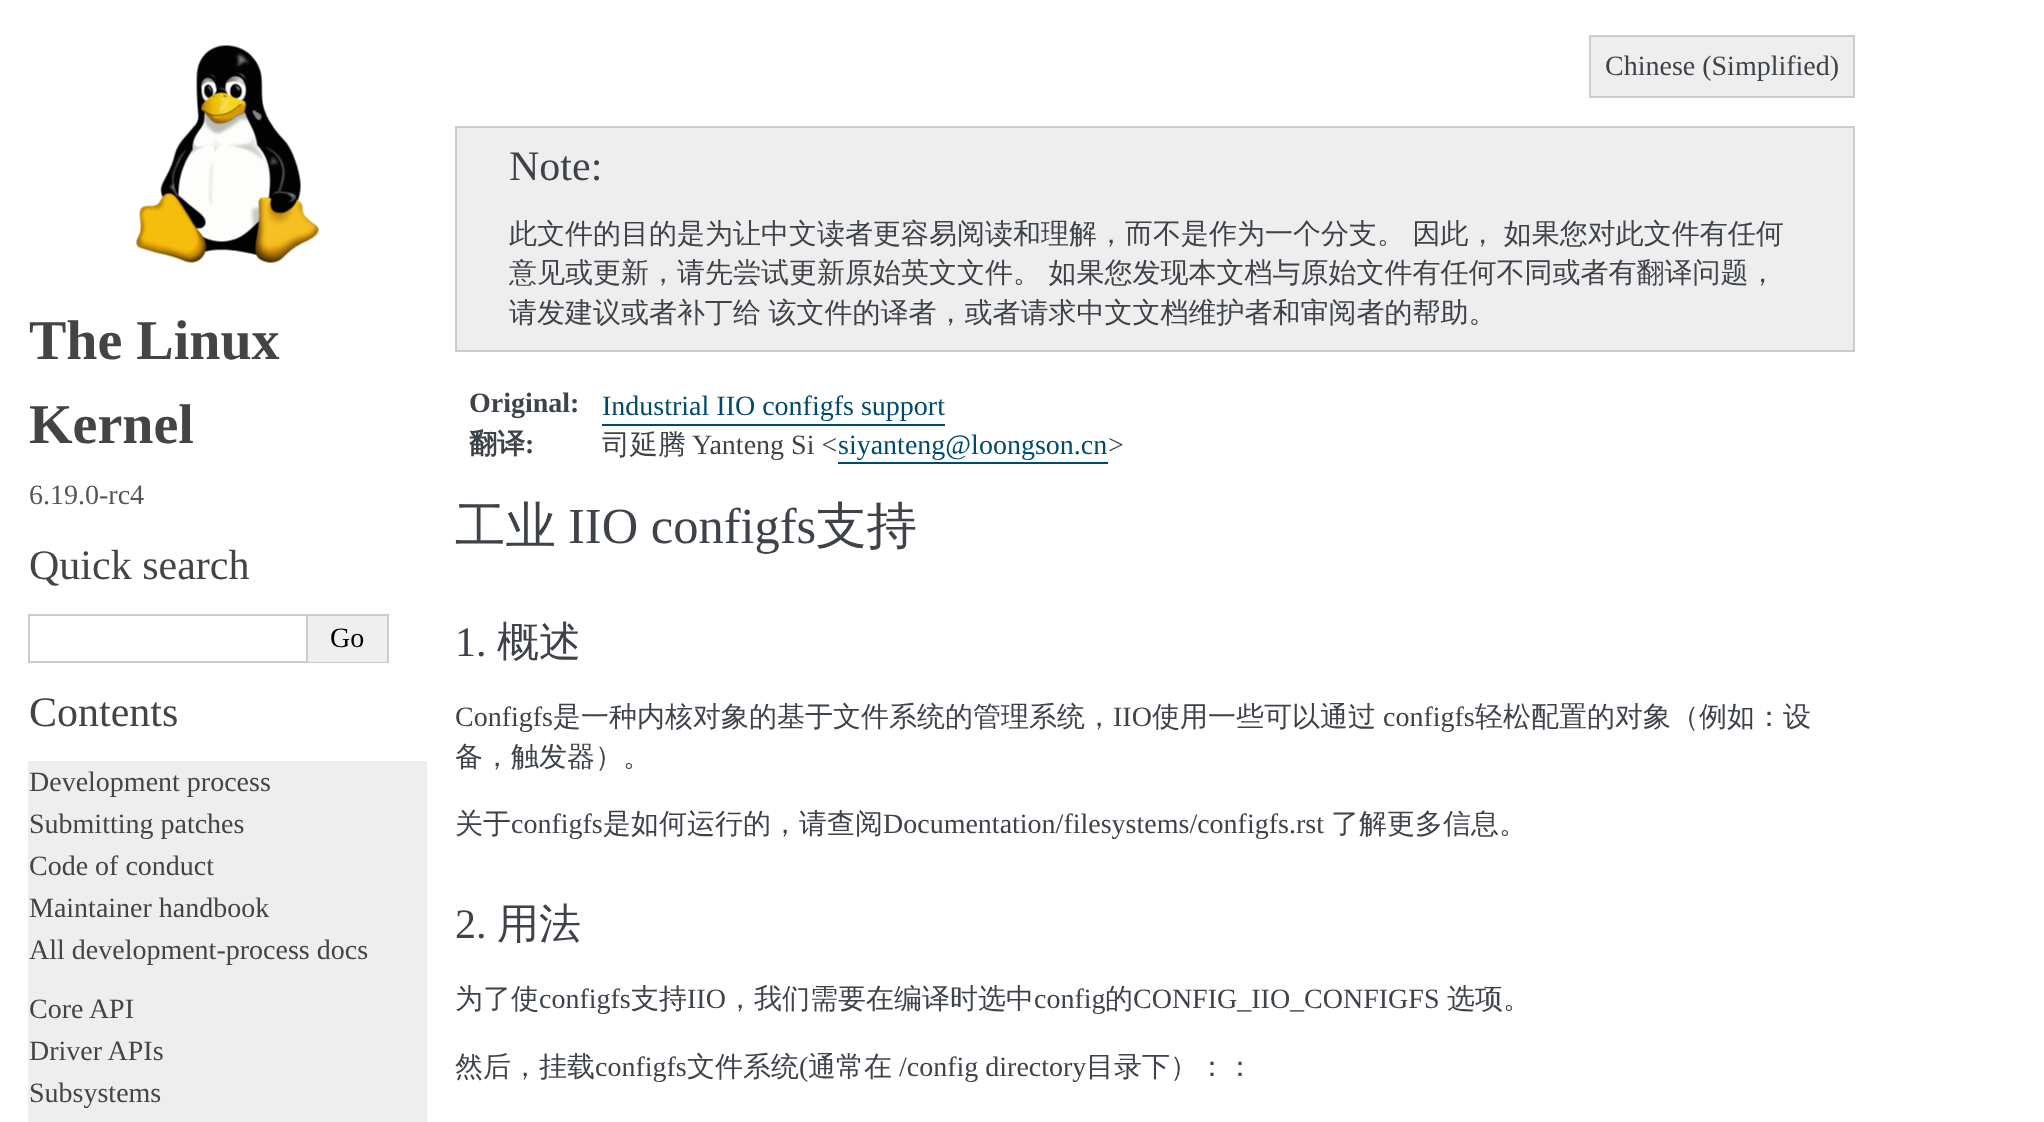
<!DOCTYPE html>
<meta charset="utf-8">
<style>body { margin: 0 } canvas { display: block }</style>
<canvas id="canvas" width="2044" height="1122"></canvas>
<img id="img1" src="img_01.png" hidden>
<script>
window.onload = function () {
	const canvas = document.getElementById("canvas");
	const ctx = canvas.getContext("2d");
	ctx.miterLimit = 4;
	ctx.fontKerning = "normal";
	function txt(s, x, y) {
		ctx.fillText(s, x, y);
	}
	function fill(x, y, w, h) {
		ctx.fillRect(x, y, w, h);
	}
	function img(id, x, y, w, h) {
		ctx.drawImage(document.getElementById(id), x, y, w, h);
	}

	ctx.fillStyle = "#FFFFFF";
	fill(0, 0, 2044, 1122);
	img("img1", 136, 45, 183, 218);
	ctx.strokeStyle = "#CCCCCC";
	ctx.lineWidth = 2;
	ctx.strokeRect(29, 615, 278, 47);
	ctx.fillStyle = "#EFEFEF";
	fill(308, 616, 79, 46);
	ctx.fillStyle = "#CCCCCC";
	fill(308, 614, 81, 2);
	fill(387, 614, 2, 49);
	fill(308, 662, 81, 1);
	ctx.fillStyle = "#EEEEEE";
	fill(28, 761, 399, 361);
	ctx.beginPath();
	ctx.rect(1590, 36, 264, 61);
	ctx.fill();
	ctx.stroke();
	ctx.beginPath();
	ctx.rect(456, 127, 1398, 224);
	ctx.fill();
	ctx.stroke();
	ctx.fillStyle = "#004B6B";
	fill(602, 424, 343, 2);
	fill(838, 462, 270, 2);
	ctx.font = "bold 56px Liberation Serif";
	ctx.fillStyle = "#444444";
	txt("The Linux", 29, 359);
	txt("Kernel", 29, 443);
	ctx.font = "28px Liberation Serif";
	ctx.fillStyle = "#555555";
	txt("6.19.0-rc4", 29, 504);
	ctx.font = "42px Liberation Serif";
	ctx.fillStyle = "#444444";
	txt("Quick search", 29, 579);
	ctx.font = "28px Liberation Serif";
	ctx.fillStyle = "#000000";
	txt("Go", 330, 647);
	ctx.font = "42px Liberation Serif";
	ctx.fillStyle = "#444444";
	txt("Contents", 29, 726);
	ctx.font = "28px Liberation Serif";
	txt("Development process", 29, 791);
	txt("Submitting patches", 29, 833);
	txt("Code of conduct", 29, 875);
	txt("Maintainer handbook", 29, 917);
	txt("All development-process docs", 29, 959);
	txt("Core API", 29, 1018);
	txt("Driver APIs", 29, 1060);
	txt("Subsystems", 29, 1102);
	ctx.fillStyle = "#3E4349";
	txt("Chinese (Simplified)", 1605, 75);
	ctx.font = "42px Liberation Serif";
	txt("Note:", 509, 180);
	ctx.wordSpacing = "-1px";
	ctx.font = "500 28px WenQuanYi Zen Hei";
	txt("此文件的目的是为让中文读者更容易阅读和理解，而不是作为一个分支。 因此， 如果您对此文件有任何", 509, 243);
	txt("意见或更新，请先尝试更新原始英文文件。 如果您发现本文档与原始文件有任何不同或者有翻译问题，", 509, 282);
	txt("请发建议或者补丁给 该文件的译者，或者请求中文文档维护者和审阅者的帮助。", 509, 322);
	ctx.wordSpacing = "0px";
	ctx.font = "bold 28px Liberation Serif";
	txt("Original:", 469, 412);
	ctx.font = "28px Liberation Serif";
	ctx.fillStyle = "#004B6B";
	txt("Industrial IIO configfs support", 602, 415);
	ctx.font = "bold 28px WenQuanYi Zen Hei";
	ctx.fillStyle = "#3E4349";
	txt("翻译", 469, 453);
	ctx.font = "bold 28px Liberation Serif";
	txt(":", 525, 453);
	ctx.font = "500 28px WenQuanYi Zen Hei";
	txt("司延腾", 602, 454);
	ctx.font = "28px Liberation Serif";
	txt("Yanteng Si <", 692, 454);
	ctx.fillStyle = "#004B6B";
	txt("siyanteng@loongson.cn", 838, 454);
	ctx.fillStyle = "#3E4349";
	txt(">", 1108, 454);
	ctx.font = "500 50.5px WenQuanYi Zen Hei";
	txt("工业", 455, 543);
	ctx.font = "50.5px Liberation Serif";
	txt("IIO configfs", 568, 543);
	ctx.font = "500 50.5px WenQuanYi Zen Hei";
	txt("支持", 816, 543);
	ctx.font = "42px Liberation Serif";
	txt("1.", 455, 656);
	ctx.font = "500 42px WenQuanYi Zen Hei";
	txt("概述", 497, 656);
	ctx.font = "28px Liberation Serif";
	txt("Configfs", 455, 726);
	ctx.font = "500 28px WenQuanYi Zen Hei";
	txt("是一种内核对象的基于文件系统的管理系统，", 553, 726);
	ctx.font = "28px Liberation Serif";
	txt("IIO", 1113, 726);
	ctx.font = "500 28px WenQuanYi Zen Hei";
	txt("使用一些可以通过", 1152, 726);
	ctx.font = "28px Liberation Serif";
	txt("configfs", 1383, 726);
	ctx.font = "500 28px WenQuanYi Zen Hei";
	txt("轻松配置的对象（例如：设", 1475, 726);
	txt("备，触发器）。", 455, 766);
	txt("关于", 455, 833);
	ctx.font = "28px Liberation Serif";
	txt("configfs", 511, 833);
	ctx.font = "500 28px WenQuanYi Zen Hei";
	txt("是如何运行的，请查阅", 603, 833);
	ctx.font = "28px Liberation Serif";
	txt("Documentation/filesystems/configfs.rst", 883, 833);
	ctx.font = "500 28px WenQuanYi Zen Hei";
	txt("了解更多信息。", 1331, 833);
	ctx.font = "42px Liberation Serif";
	txt("2.", 455, 938);
	ctx.font = "500 42px WenQuanYi Zen Hei";
	txt("用法", 497, 938);
	ctx.font = "500 28px WenQuanYi Zen Hei";
	txt("为了使", 455, 1008);
	ctx.font = "28px Liberation Serif";
	txt("configfs", 539, 1008);
	ctx.font = "500 28px WenQuanYi Zen Hei";
	txt("支持", 631, 1008);
	ctx.font = "28px Liberation Serif";
	txt("IIO", 687, 1008);
	ctx.font = "500 28px WenQuanYi Zen Hei";
	txt("，我们需要在编译时选中", 726, 1008);
	ctx.font = "28px Liberation Serif";
	txt("config", 1034, 1008);
	ctx.font = "500 28px WenQuanYi Zen Hei";
	txt("的", 1105, 1008);
	ctx.font = "28px Liberation Serif";
	txt("CONFIG_IIO_CONFIGFS", 1133, 1008);
	ctx.font = "500 28px WenQuanYi Zen Hei";
	txt("选项。", 1447, 1008);
	txt("然后，挂载", 455, 1076);
	ctx.font = "28px Liberation Serif";
	txt("configfs", 595, 1076);
	ctx.font = "500 28px WenQuanYi Zen Hei";
	txt("文件系统", 687, 1076);
	ctx.font = "28px Liberation Serif";
	txt("(", 799, 1076);
	ctx.font = "500 28px WenQuanYi Zen Hei";
	txt("通常在", 808, 1076);
	ctx.font = "28px Liberation Serif";
	txt("/config directory", 899, 1076);
	ctx.font = "500 28px WenQuanYi Zen Hei";
	txt("目录下）：：", 1086, 1076);
};
</script>
